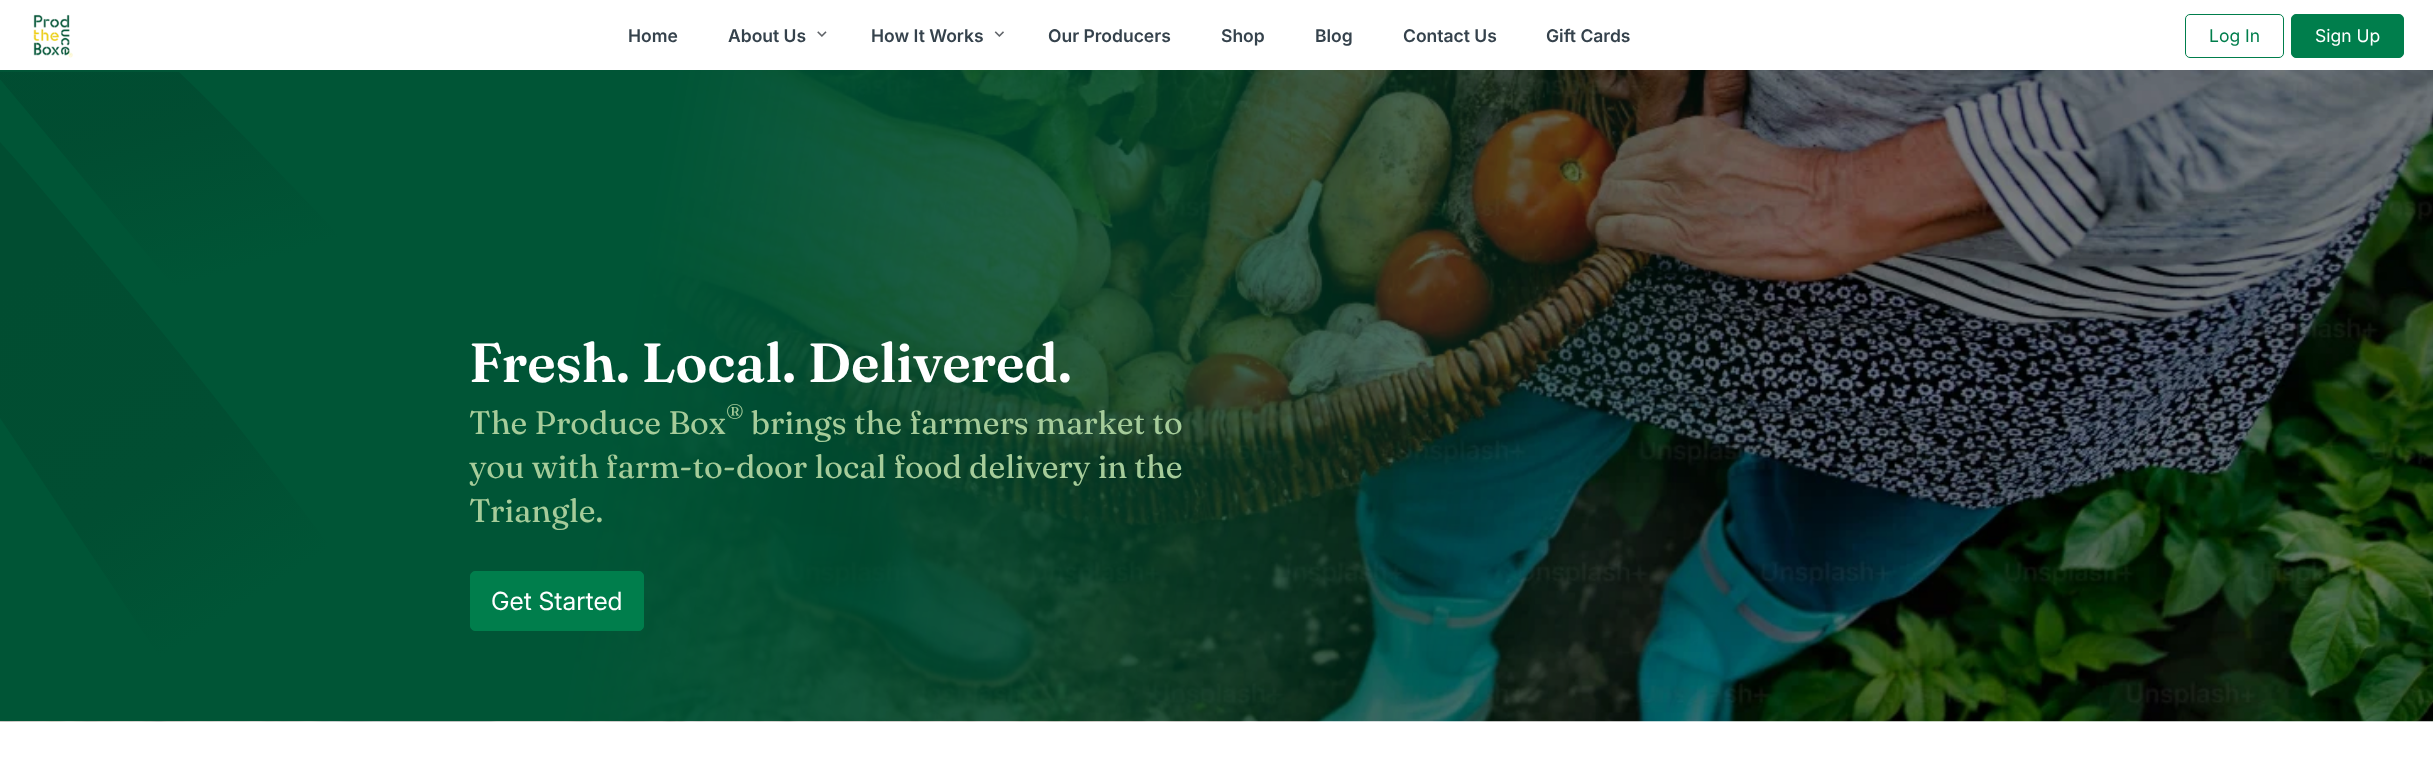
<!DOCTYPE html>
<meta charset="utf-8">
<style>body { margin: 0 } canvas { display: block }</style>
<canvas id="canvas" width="2433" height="771"></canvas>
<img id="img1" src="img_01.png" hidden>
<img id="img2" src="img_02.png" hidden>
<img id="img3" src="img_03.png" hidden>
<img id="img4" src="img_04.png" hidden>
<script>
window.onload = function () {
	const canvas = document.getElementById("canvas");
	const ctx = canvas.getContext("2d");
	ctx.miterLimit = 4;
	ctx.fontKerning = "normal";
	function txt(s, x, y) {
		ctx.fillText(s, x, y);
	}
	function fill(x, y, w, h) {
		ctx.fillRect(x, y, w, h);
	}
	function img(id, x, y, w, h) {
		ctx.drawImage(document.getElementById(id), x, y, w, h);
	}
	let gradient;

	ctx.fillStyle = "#FFFFFF";
	fill(0, 0, 2433, 771);
	img("img1", 33, 14, 40, 44);
	img("img2", 817, 31, 10, 6);
	img("img3", 994, 31, 10, 6);
	ctx.beginPath();
	ctx.roundRect(2185.5, 14.5, 98, 43, 4.5);
	ctx.strokeStyle = "#007E4C";
	ctx.stroke();
	ctx.fillStyle = "#007E4C";
	ctx.beginPath();
	ctx.roundRect(2291.5, 14.5, 112, 43, 4.5);
	ctx.fill();
	ctx.stroke();
	img("img4", 0, 70, 2433, 652);
	ctx.save();
	ctx.beginPath();
	ctx.rect(0, 70, 789, 651);
	ctx.clip();
	gradient = ctx.createLinearGradient(0.6, 142, 443, 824);
	gradient.addColorStop(0.15, "#014D31");
	gradient.addColorStop(0.45, "#014E32");
	gradient.addColorStop(0.64, "#005536");
	ctx.fillStyle = gradient;
	ctx.beginPath();
	ctx.moveTo(469, 762);
	ctx.bezierCurveTo(389, 599, 123, 280, 0, 142);
	ctx.lineTo(0, 418);
	ctx.lineTo(230, 762);
	ctx.closePath();
	ctx.fill();
	ctx.restore();
	gradient = ctx.createLinearGradient(177, 56, 416, 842);
	gradient.addColorStop(0, "rgba(1, 71, 46, 0.6)");
	gradient.addColorStop(0.1, "#014E32");
	gradient.addColorStop(0.27, "rgba(1, 78, 50, 0)");
	ctx.fillStyle = gradient;
	ctx.beginPath();
	ctx.moveTo(789, 768);
	ctx.bezierCurveTo(695, 612, 313, 200, 179, 72);
	ctx.lineTo(-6, 72);
	ctx.lineTo(593, 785);
	ctx.closePath();
	ctx.fill();
	ctx.fillStyle = "#007E4C";
	ctx.beginPath();
	ctx.roundRect(470.5, 571.5, 173, 59, 4.5);
	ctx.fill();
	ctx.stroke();
	ctx.font = "600 17.5px Inter";
	ctx.fillStyle = "#35424C";
	txt("Home", 628, 42);
	txt("About Us", 728, 42);
	txt("How It Works", 871, 42);
	txt("Our Producers", 1048, 42);
	txt("Shop", 1221, 42);
	txt("Blog", 1315, 42);
	txt("Contact Us", 1403, 42);
	txt("Gift Cards", 1546, 42);
	ctx.font = "17.5px 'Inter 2'";
	ctx.fillStyle = "#007E4C";
	txt("Log In", 2209, 42);
	ctx.fillStyle = "#FFFFFF";
	txt("Sign Up", 2315, 42);
	ctx.font = "600 55px Fraunces";
	txt("Fresh. Local. Delivered.", 469, 382);
	ctx.font = "32.5px Fraunces";
	ctx.fillStyle = "#A6CC9A";
	txt("The Produce Box", 469, 434);
	ctx.font = "24px 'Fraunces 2'";
	txt("®", 726, 422);
	ctx.font = "32.5px Fraunces";
	txt("brings the farmers market to", 751, 434);
	txt("you with farm-to-door local food delivery in the", 469, 478);
	txt("Triangle.", 469, 522);
	ctx.font = "25px Inter";
	ctx.fillStyle = "#FFFFFF";
	txt("Get Started", 491, 610);
};
</script>
